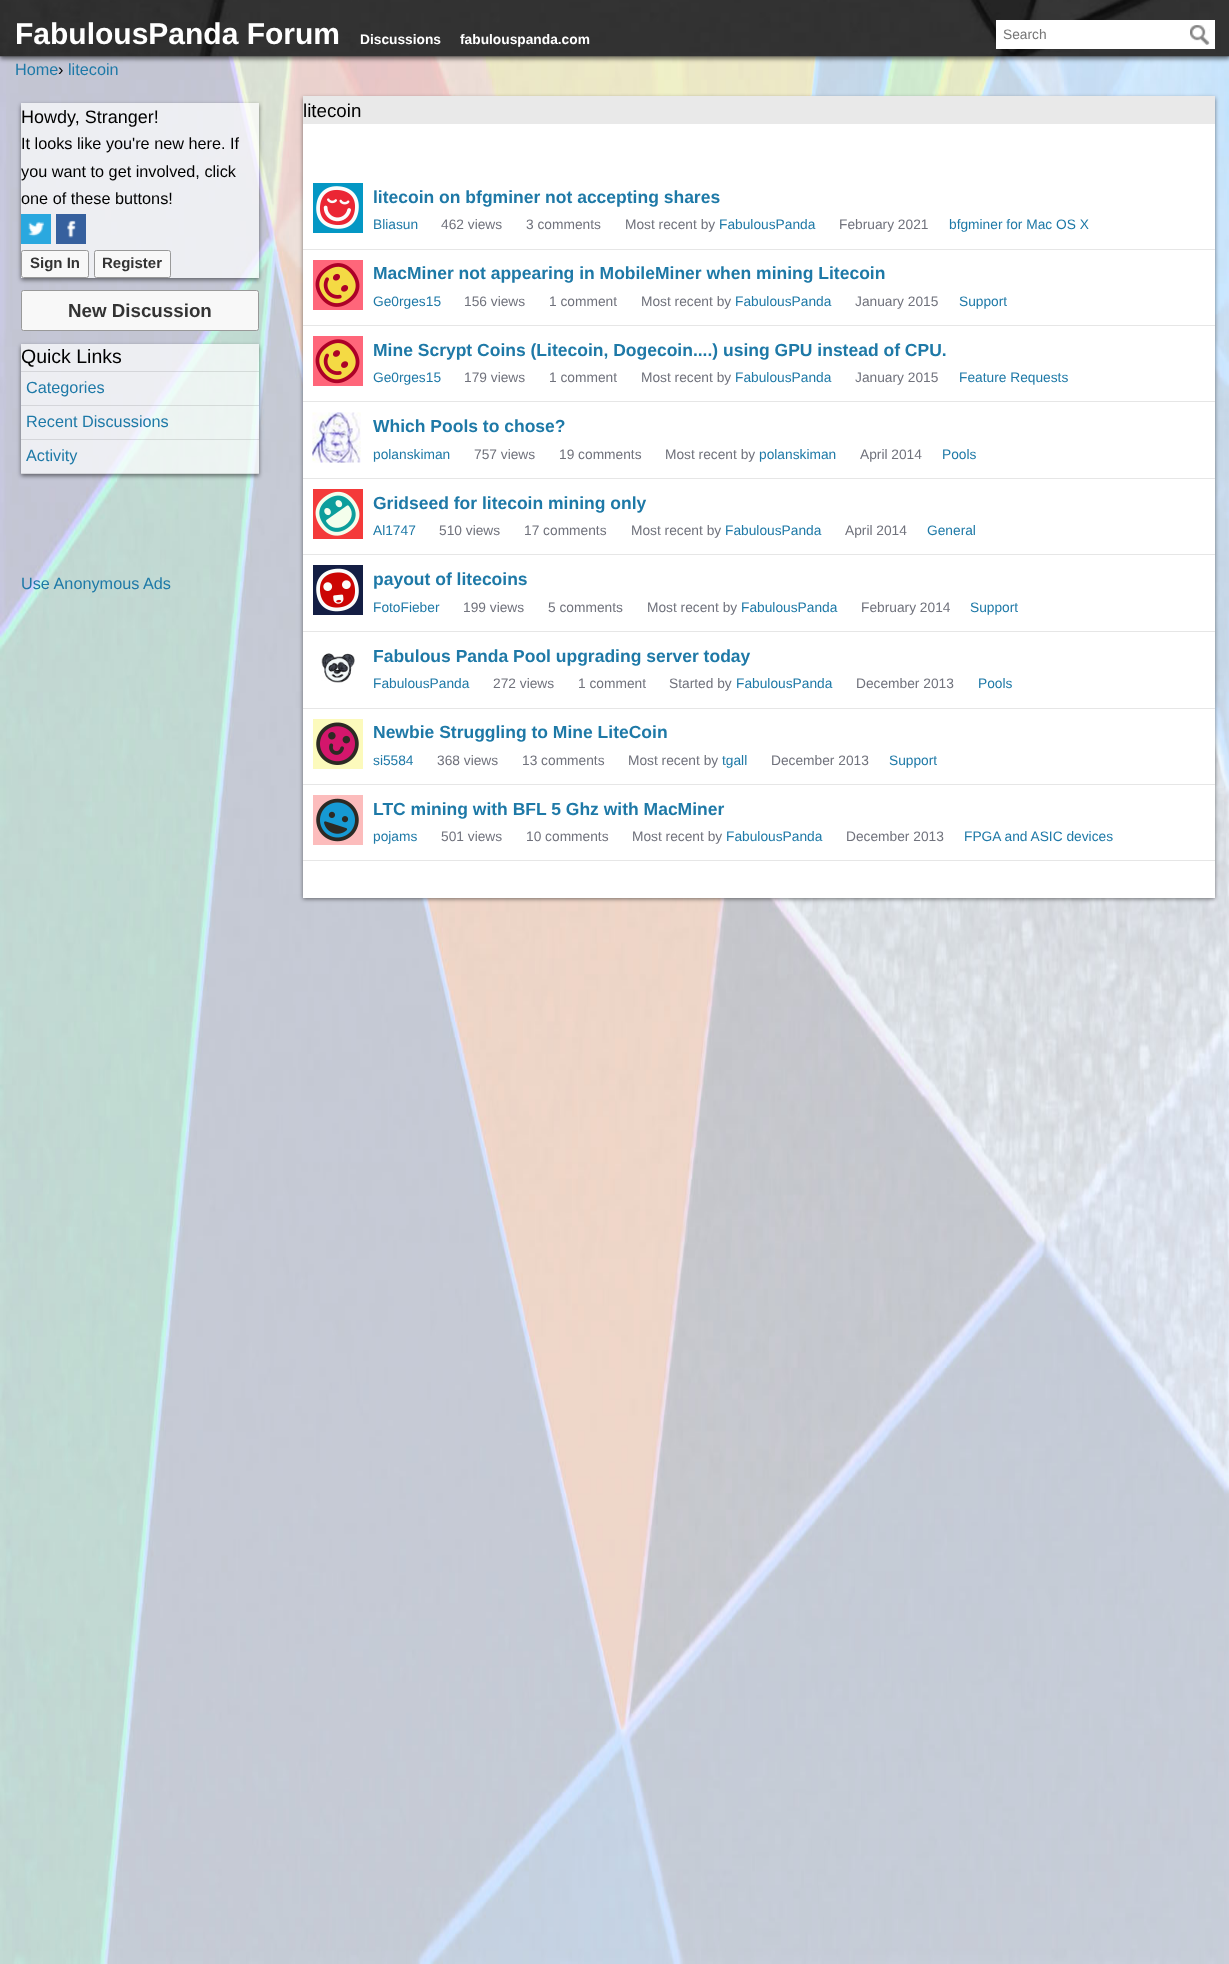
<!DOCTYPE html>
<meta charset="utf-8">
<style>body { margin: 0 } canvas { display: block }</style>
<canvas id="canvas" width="1229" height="1964"></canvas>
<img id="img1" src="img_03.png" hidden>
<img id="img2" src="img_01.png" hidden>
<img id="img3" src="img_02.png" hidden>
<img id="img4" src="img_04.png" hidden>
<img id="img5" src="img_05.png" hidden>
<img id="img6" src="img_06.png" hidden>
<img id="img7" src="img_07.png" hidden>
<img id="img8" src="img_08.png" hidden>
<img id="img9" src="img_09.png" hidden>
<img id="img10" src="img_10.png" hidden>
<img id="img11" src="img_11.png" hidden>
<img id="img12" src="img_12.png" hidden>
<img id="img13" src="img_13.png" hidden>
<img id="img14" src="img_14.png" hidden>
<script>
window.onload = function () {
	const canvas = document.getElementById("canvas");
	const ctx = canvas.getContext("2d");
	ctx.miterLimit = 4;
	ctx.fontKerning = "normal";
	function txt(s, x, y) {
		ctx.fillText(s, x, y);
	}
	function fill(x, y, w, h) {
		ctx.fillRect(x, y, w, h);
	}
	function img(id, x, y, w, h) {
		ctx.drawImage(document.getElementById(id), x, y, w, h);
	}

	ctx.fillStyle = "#FFFFFF";
	fill(0, 0, 1229, 1964);
	img("img1", 0, 56, 1229, 1908);
	ctx.fillStyle = "rgba(0, 0, 0, 0.5)";
	ctx.filter = "blur(2px)";
	ctx.beginPath();
	ctx.rect(0, 3, 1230, 56);
	ctx.fill();
	ctx.filter = "none";
	img("img2", 0, 0, 1229, 57);
	ctx.fillStyle = "#FFFFFF";
	fill(996, 20, 219, 29);
	img("img3", 1190, 25, 20, 20);
	ctx.save();
	ctx.beginPath();
	ctx.moveTo(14, 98);
	ctx.lineTo(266, 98);
	ctx.lineTo(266, 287);
	ctx.lineTo(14, 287);
	ctx.closePath();
	ctx.moveTo(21, 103);
	ctx.lineTo(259, 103);
	ctx.lineTo(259, 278);
	ctx.lineTo(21, 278);
	ctx.closePath();
	ctx.clip("evenodd");
	ctx.fillStyle = "rgba(0, 0, 0, 0.5)";
	ctx.filter = "blur(2px)";
	ctx.beginPath();
	ctx.rect(21, 105, 238, 175);
	ctx.fill();
	ctx.filter = "none";
	ctx.restore();
	ctx.fillStyle = "rgba(255, 255, 255, 0.7)";
	fill(21, 103, 238, 175);
	ctx.fillStyle = "#2AA8DF";
	fill(21, 214, 30, 30);
	img("img4", 28, 221, 17, 16);
	ctx.fillStyle = "#36609E";
	fill(56, 214, 30, 30);
	img("img5", 67, 220, 9, 18);
	ctx.fillStyle = "#F8F8F8";
	ctx.beginPath();
	ctx.roundRect(21.5, 250.5, 67, 27, 2);
	ctx.fill();
	ctx.strokeStyle = "#999999";
	ctx.stroke();
	ctx.beginPath();
	ctx.roundRect(94.5, 250.5, 76, 27, 2);
	ctx.fill();
	ctx.stroke();
	ctx.beginPath();
	ctx.roundRect(21.5, 290.5, 237, 40, 2);
	ctx.fill();
	ctx.stroke();
	ctx.save();
	ctx.beginPath();
	ctx.moveTo(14, 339);
	ctx.lineTo(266, 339);
	ctx.lineTo(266, 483);
	ctx.lineTo(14, 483);
	ctx.closePath();
	ctx.moveTo(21, 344);
	ctx.lineTo(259, 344);
	ctx.lineTo(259, 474);
	ctx.lineTo(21, 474);
	ctx.closePath();
	ctx.clip("evenodd");
	ctx.fillStyle = "rgba(0, 0, 0, 0.5)";
	ctx.filter = "blur(2px)";
	ctx.beginPath();
	ctx.rect(21, 346, 238, 130);
	ctx.fill();
	ctx.filter = "none";
	ctx.restore();
	ctx.fillStyle = "rgba(255, 255, 255, 0.7)";
	fill(21, 344, 238, 130);
	ctx.fillStyle = "rgba(0, 0, 0, 0.1)";
	fill(21, 371, 238, 1);
	fill(21, 405, 238, 1);
	fill(21, 439, 238, 1);
	fill(21, 473, 238, 1);
	ctx.fillStyle = "rgba(0, 0, 0, 0.5)";
	ctx.filter = "blur(2px)";
	ctx.beginPath();
	ctx.rect(303, 98, 912, 801);
	ctx.fill();
	ctx.filter = "none";
	ctx.fillStyle = "#FFFFFF";
	fill(303, 124, 912, 774);
	ctx.fillStyle = "#E9E9E9";
	fill(303, 96, 912, 28);
	ctx.fillStyle = "#E6E6E6";
	fill(303, 249, 912, 1);
	img("img6", 313, 183, 50, 50);
	fill(303, 325, 912, 1);
	img("img7", 313, 260, 50, 50);
	fill(303, 401, 912, 1);
	img("img8", 313, 336, 50, 50);
	fill(303, 478, 912, 1);
	img("img9", 312, 412, 49, 51);
	fill(303, 554, 912, 1);
	img("img10", 313, 489, 50, 50);
	fill(303, 631, 912, 1);
	img("img11", 313, 565, 50, 50);
	fill(303, 708, 912, 1);
	img("img12", 321, 653, 34, 30);
	fill(303, 784, 912, 1);
	img("img13", 313, 719, 50, 50);
	fill(303, 860, 912, 1);
	img("img14", 313, 795, 50, 50);
	ctx.font = "bold 30px Liberation Sans";
	ctx.fillStyle = "#FFFFFF";
	txt("FabulousPanda Forum", 15, 44);
	ctx.font = "bold 13.75px Liberation Sans";
	txt("Discussions", 360, 44);
	txt("fabulouspanda.com", 460, 44);
	ctx.font = "13.75px Liberation Sans";
	ctx.fillStyle = "#757575";
	txt("Search", 1003, 39);
	ctx.font = "16.25px Liberation Sans";
	ctx.fillStyle = "#1E79A7";
	txt("Home", 15, 75);
	ctx.fillStyle = "#000000";
	txt("›", 58, 75);
	ctx.fillStyle = "#1E79A7";
	txt("litecoin", 68, 75);
	ctx.font = "18px Liberation Sans";
	ctx.fillStyle = "#000000";
	txt("Howdy, Stranger!", 21, 123);
	ctx.font = "16.25px Liberation Sans";
	txt("It looks like you're new here. If", 21, 149);
	txt("you want to get involved, click", 21, 177);
	txt("one of these buttons!", 21, 204);
	ctx.font = "bold 15px Liberation Sans";
	ctx.fillStyle = "#333333";
	txt("Sign In", 30, 268);
	txt("Register", 102, 268);
	ctx.font = "bold 18.75px Liberation Sans";
	txt("New Discussion", 68, 317);
	ctx.font = "19.5px Liberation Sans";
	ctx.fillStyle = "#000000";
	txt("Quick Links", 21, 363);
	ctx.font = "16.25px Liberation Sans";
	ctx.fillStyle = "#1E79A7";
	txt("Categories", 26, 393);
	txt("Recent Discussions", 26, 427);
	txt("Activity", 26, 461);
	txt("Use Anonymous Ads", 21, 589);
	ctx.font = "18.75px Liberation Sans";
	ctx.fillStyle = "#000000";
	txt("litecoin", 303, 117);
	ctx.font = "bold 17.5px Liberation Sans";
	ctx.fillStyle = "#1E79A7";
	txt("litecoin on bfgminer not accepting shares", 373, 203);
	ctx.font = "13.75px Liberation Sans";
	txt("Bliasun", 373, 229);
	ctx.fillStyle = "#70727C";
	txt("462 views", 441, 229);
	txt("3 comments", 526, 229);
	txt("Most recent by", 625, 229);
	ctx.fillStyle = "#1E79A7";
	txt("FabulousPanda", 719, 229);
	ctx.fillStyle = "#70727C";
	txt("February 2021", 839, 229);
	ctx.fillStyle = "#1E79A7";
	txt("bfgminer for Mac OS X", 949, 229);
	ctx.font = "bold 17.5px Liberation Sans";
	txt("MacMiner not appearing in MobileMiner when mining Litecoin", 373, 279);
	ctx.font = "13.75px Liberation Sans";
	txt("Ge0rges15", 373, 306);
	ctx.fillStyle = "#70727C";
	txt("156 views", 464, 306);
	txt("1 comment", 549, 306);
	txt("Most recent by", 641, 306);
	ctx.fillStyle = "#1E79A7";
	txt("FabulousPanda", 735, 306);
	ctx.fillStyle = "#70727C";
	txt("January 2015", 855, 306);
	ctx.fillStyle = "#1E79A7";
	txt("Support", 959, 306);
	ctx.font = "bold 17.5px Liberation Sans";
	txt("Mine Scrypt Coins (Litecoin, Dogecoin....) using GPU instead of CPU.", 373, 356);
	ctx.font = "13.75px Liberation Sans";
	txt("Ge0rges15", 373, 382);
	ctx.fillStyle = "#70727C";
	txt("179 views", 464, 382);
	txt("1 comment", 549, 382);
	txt("Most recent by", 641, 382);
	ctx.fillStyle = "#1E79A7";
	txt("FabulousPanda", 735, 382);
	ctx.fillStyle = "#70727C";
	txt("January 2015", 855, 382);
	ctx.fillStyle = "#1E79A7";
	txt("Feature Requests", 959, 382);
	ctx.font = "bold 17.5px Liberation Sans";
	txt("Which Pools to chose?", 373, 432);
	ctx.font = "13.75px Liberation Sans";
	txt("polanskiman", 373, 459);
	ctx.fillStyle = "#70727C";
	txt("757 views", 474, 459);
	txt("19 comments", 559, 459);
	txt("Most recent by", 665, 459);
	ctx.fillStyle = "#1E79A7";
	txt("polanskiman", 759, 459);
	ctx.fillStyle = "#70727C";
	txt("April 2014", 860, 459);
	ctx.fillStyle = "#1E79A7";
	txt("Pools", 942, 459);
	ctx.font = "bold 17.5px Liberation Sans";
	txt("Gridseed for litecoin mining only", 373, 509);
	ctx.font = "13.75px Liberation Sans";
	txt("Al1747", 373, 535);
	ctx.fillStyle = "#70727C";
	txt("510 views", 439, 535);
	txt("17 comments", 524, 535);
	txt("Most recent by", 631, 535);
	ctx.fillStyle = "#1E79A7";
	txt("FabulousPanda", 725, 535);
	ctx.fillStyle = "#70727C";
	txt("April 2014", 845, 535);
	ctx.fillStyle = "#1E79A7";
	txt("General", 927, 535);
	ctx.font = "bold 17.5px Liberation Sans";
	txt("payout of litecoins", 373, 585);
	ctx.font = "13.75px Liberation Sans";
	txt("FotoFieber", 373, 612);
	ctx.fillStyle = "#70727C";
	txt("199 views", 463, 612);
	txt("5 comments", 548, 612);
	txt("Most recent by", 647, 612);
	ctx.fillStyle = "#1E79A7";
	txt("FabulousPanda", 741, 612);
	ctx.fillStyle = "#70727C";
	txt("February 2014", 861, 612);
	ctx.fillStyle = "#1E79A7";
	txt("Support", 970, 612);
	ctx.font = "bold 17.5px Liberation Sans";
	txt("Fabulous Panda Pool upgrading server today", 373, 662);
	ctx.font = "13.75px Liberation Sans";
	txt("FabulousPanda", 373, 688);
	ctx.fillStyle = "#70727C";
	txt("272 views", 493, 688);
	txt("1 comment", 578, 688);
	txt("Started by", 669, 688);
	ctx.fillStyle = "#1E79A7";
	txt("FabulousPanda", 736, 688);
	ctx.fillStyle = "#70727C";
	txt("December 2013", 856, 688);
	ctx.fillStyle = "#1E79A7";
	txt("Pools", 978, 688);
	ctx.font = "bold 17.5px Liberation Sans";
	txt("Newbie Struggling to Mine LiteCoin", 373, 738);
	ctx.font = "13.75px Liberation Sans";
	txt("si5584", 373, 765);
	ctx.fillStyle = "#70727C";
	txt("368 views", 437, 765);
	txt("13 comments", 522, 765);
	txt("Most recent by", 628, 765);
	ctx.fillStyle = "#1E79A7";
	txt("tgall", 722, 765);
	ctx.fillStyle = "#70727C";
	txt("December 2013", 771, 765);
	ctx.fillStyle = "#1E79A7";
	txt("Support", 889, 765);
	ctx.font = "bold 17.5px Liberation Sans";
	txt("LTC mining with BFL 5 Ghz with MacMiner", 373, 815);
	ctx.font = "13.75px Liberation Sans";
	txt("pojams", 373, 841);
	ctx.fillStyle = "#70727C";
	txt("501 views", 441, 841);
	txt("10 comments", 526, 841);
	txt("Most recent by", 632, 841);
	ctx.fillStyle = "#1E79A7";
	txt("FabulousPanda", 726, 841);
	ctx.fillStyle = "#70727C";
	txt("December 2013", 846, 841);
	ctx.fillStyle = "#1E79A7";
	txt("FPGA and ASIC devices", 964, 841);
};
</script>
